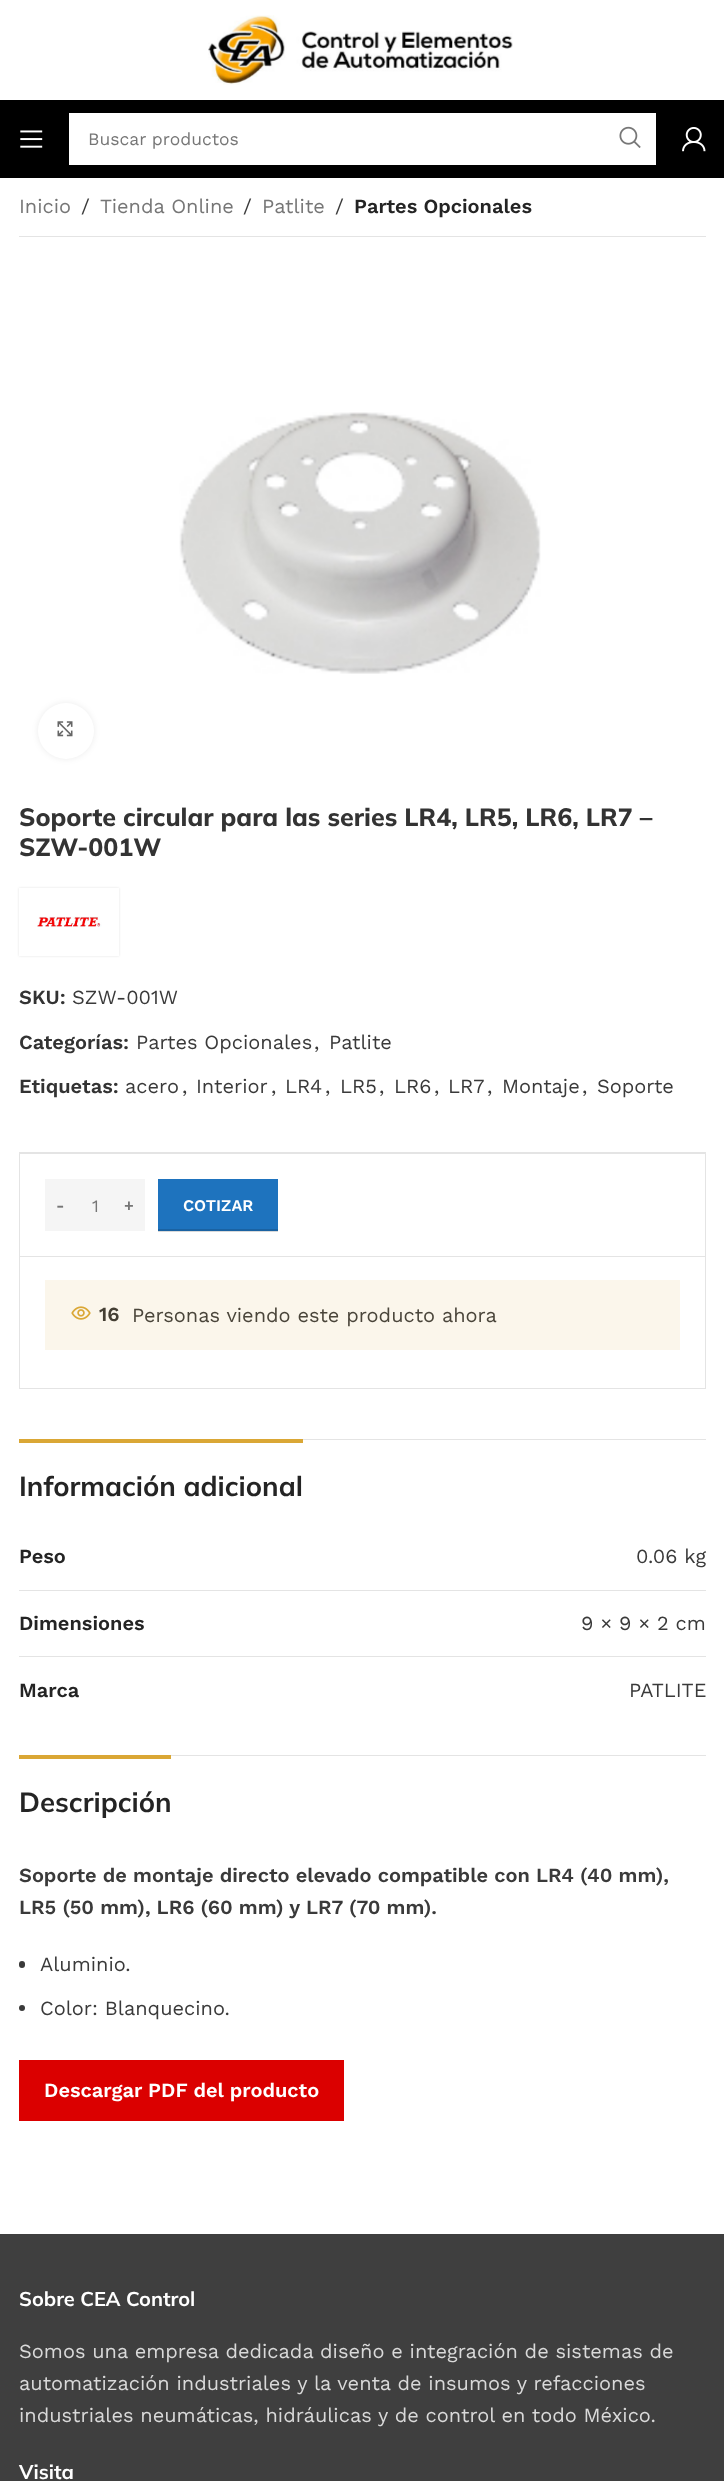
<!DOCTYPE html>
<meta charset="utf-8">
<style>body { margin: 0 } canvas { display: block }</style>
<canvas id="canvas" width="724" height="2481"></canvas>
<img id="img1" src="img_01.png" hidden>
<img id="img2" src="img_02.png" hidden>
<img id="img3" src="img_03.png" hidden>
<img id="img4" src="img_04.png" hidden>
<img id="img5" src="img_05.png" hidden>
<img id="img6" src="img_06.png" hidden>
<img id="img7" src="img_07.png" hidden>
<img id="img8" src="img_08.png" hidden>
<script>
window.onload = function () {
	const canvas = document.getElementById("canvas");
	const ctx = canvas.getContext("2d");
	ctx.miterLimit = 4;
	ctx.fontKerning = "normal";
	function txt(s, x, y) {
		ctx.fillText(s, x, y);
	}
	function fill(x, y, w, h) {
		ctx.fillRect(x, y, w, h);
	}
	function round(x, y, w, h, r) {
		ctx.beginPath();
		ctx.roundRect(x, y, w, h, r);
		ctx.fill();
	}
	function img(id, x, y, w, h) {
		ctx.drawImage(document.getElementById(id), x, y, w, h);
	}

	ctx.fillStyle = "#FFFFFF";
	fill(0, 0, 724, 2481);
	ctx.fillStyle = "#FBF6EB";
	fill(45, 1280, 635, 70);
	ctx.fillStyle = "#D9D9D9";
	fill(158, 1231, 120, 1);
	img("img1", 208, 15, 305, 70);
	ctx.fillStyle = "#000000";
	fill(0, 100, 724, 78);
	img("img2", 20, 130, 23, 18);
	ctx.fillStyle = "#FFFFFF";
	fill(69, 113, 587, 52);
	img("img3", 619, 126, 22, 22);
	img("img4", 682, 127, 24, 25);
	ctx.fillStyle = "#E4E4E4";
	fill(19, 236, 687, 1);
	img("img5", 179, 412, 362, 262);
	ctx.fillStyle = "rgba(0, 0, 0, 0.08)";
	ctx.filter = "blur(3px)";
	ctx.beginPath();
	ctx.roundRect(38, 703, 56, 56, 28);
	ctx.fill();
	ctx.filter = "none";
	ctx.fillStyle = "#FFFFFF";
	ctx.beginPath();
	ctx.arc(66, 731, 28, 0, Math.PI * 2);
	ctx.fill();
	img("img6", 57, 721, 16, 16);
	ctx.fillStyle = "rgba(0, 0, 0, 0.12)";
	ctx.filter = "blur(1px)";
	ctx.beginPath();
	ctx.rect(19, 888, 100, 68);
	ctx.fill();
	ctx.filter = "none";
	ctx.fillStyle = "#FFFFFF";
	fill(19, 888, 100, 68);
	img("img7", 37, 916, 65, 11);
	ctx.fillStyle = "#E4E4E4";
	ctx.beginPath();
	ctx.moveTo(19, 1152);
	ctx.lineTo(706, 1152);
	ctx.lineTo(705, 1154);
	ctx.lineTo(20, 1154);
	ctx.closePath();
	ctx.fill();
	ctx.fillStyle = "rgba(119, 119, 119, 0.2)";
	ctx.beginPath();
	ctx.moveTo(706, 1152);
	ctx.lineTo(706, 1256);
	ctx.lineTo(705, 1256);
	ctx.lineTo(705, 1154);
	ctx.closePath();
	ctx.fill();
	ctx.beginPath();
	ctx.moveTo(19, 1256);
	ctx.lineTo(19, 1152);
	ctx.lineTo(20, 1154);
	ctx.lineTo(20, 1256);
	ctx.closePath();
	ctx.fill();
	ctx.fillStyle = "#F5F5F5";
	fill(45, 1179, 100, 52);
	ctx.fillStyle = "#1E73BE";
	fill(158, 1179, 120, 50);
	ctx.fillStyle = "#1A62A2";
	fill(158, 1229, 120, 2);
	ctx.strokeStyle = "#E4E4E4";
	ctx.strokeRect(19.5, 1256.5, 686, 132);
	img("img8", 71, 1306, 20, 14);
	ctx.fillStyle = "#E4E4E4";
	fill(303, 1439, 403, 1);
	ctx.fillStyle = "#DAA735";
	fill(19, 1439, 284, 4);
	ctx.fillStyle = "#E4E4E4";
	fill(19, 1590, 687, 1);
	fill(19, 1656, 687, 1);
	fill(171, 1755, 535, 1);
	ctx.fillStyle = "#DAA735";
	fill(19, 1755, 152, 4);
	ctx.fillStyle = "#3A3A3A";
	round(19, 1961, 6, 7, 3);
	ctx.beginPath();
	ctx.arc(22, 2008, 3, 0, Math.PI * 2);
	ctx.fill();
	ctx.fillStyle = "#DB0000";
	fill(19, 2060, 325, 61);
	ctx.fillStyle = "#3F3F3F";
	fill(0, 2234, 724, 247);
	ctx.font = "17.5px Work Sans";
	ctx.fillStyle = "#767676";
	txt("Buscar productos", 88, 145);
	ctx.font = "20px Work Sans";
	txt("Inicio", 19, 213);
	ctx.fillStyle = "#3A3A3A";
	txt("/", 81, 213);
	ctx.fillStyle = "#767676";
	txt("Tienda Online", 100, 213);
	ctx.fillStyle = "#3A3A3A";
	txt("/", 243, 213);
	ctx.fillStyle = "#767676";
	txt("Patlite", 262, 213);
	ctx.fillStyle = "#3A3A3A";
	txt("/", 335, 213);
	ctx.font = "600 20px Work Sans";
	ctx.fillStyle = "#242424";
	txt("Partes Opcionales", 354, 213);
	ctx.font = "800 25px Mulish";
	ctx.fillStyle = "#333333";
	txt("Soporte circular para las series LR4, LR5, LR6, LR7 –", 19, 826);
	txt("SZW-001W", 19, 856);
	ctx.font = "600 20px Work Sans";
	txt("SKU:", 19, 1004);
	ctx.font = "20px Work Sans";
	ctx.fillStyle = "#3A3A3A";
	txt("SZW-001W", 72, 1004);
	ctx.font = "600 20px Work Sans";
	ctx.fillStyle = "#333333";
	txt("Categorías:", 19, 1049);
	ctx.font = "20px Work Sans";
	ctx.fillStyle = "#3A3A3A";
	txt("Partes Opcionales", 136, 1049);
	txt(",", 314, 1049);
	txt("Patlite", 329, 1049);
	ctx.font = "600 20px Work Sans";
	ctx.fillStyle = "#333333";
	txt("Etiquetas:", 19, 1093);
	ctx.font = "20px Work Sans";
	ctx.fillStyle = "#3A3A3A";
	txt("acero", 125, 1093);
	txt(",", 182, 1093);
	txt("Interior", 196, 1093);
	txt(",", 271, 1093);
	txt("LR4", 285, 1093);
	txt(",", 325, 1093);
	txt("LR5", 340, 1093);
	txt(",", 379, 1093);
	txt("LR6", 394, 1093);
	txt(",", 434, 1093);
	txt("LR7", 448, 1093);
	txt(",", 487, 1093);
	txt("Montaje", 502, 1093);
	txt(",", 582, 1093);
	txt("Soporte", 597, 1093);
	ctx.font = "600 16.25px Work Sans";
	ctx.fillStyle = "#767676";
	txt("-", 56, 1211);
	ctx.font = "17.5px Work Sans";
	txt("1", 92, 1212);
	ctx.font = "600 16.25px Work Sans";
	txt("+", 124, 1211);
	ctx.fillStyle = "#FFFFFF";
	txt("COTIZAR", 183, 1211);
	ctx.font = "600 20px Work Sans";
	ctx.fillStyle = "#443F33";
	txt("16", 99, 1321);
	ctx.font = "20px Work Sans";
	ctx.fillStyle = "#4A453A";
	txt("Personas viendo este producto ahora", 132, 1322);
	ctx.font = "bold 27.5px Mulish";
	ctx.fillStyle = "#242424";
	txt("Información adicional", 19, 1496);
	ctx.font = "600 20px Work Sans";
	txt("Peso", 19, 1563);
	ctx.font = "20px Work Sans";
	ctx.fillStyle = "#3A3A3A";
	txt("0.06 kg", 636, 1563);
	ctx.font = "600 20px Work Sans";
	ctx.fillStyle = "#242424";
	txt("Dimensiones", 19, 1630);
	ctx.font = "20px Work Sans";
	ctx.fillStyle = "#3A3A3A";
	txt("9 × 9 × 2 cm", 581, 1630);
	ctx.font = "600 20px Work Sans";
	ctx.fillStyle = "#242424";
	txt("Marca", 19, 1697);
	ctx.font = "20px Work Sans";
	ctx.fillStyle = "#3A3A3A";
	txt("PATLITE", 629, 1697);
	ctx.font = "bold 27.5px Mulish";
	ctx.fillStyle = "#242424";
	txt("Descripción", 19, 1812);
	ctx.font = "600 20px Work Sans";
	ctx.fillStyle = "#3A3A3A";
	txt("Soporte de montaje directo elevado compatible con LR4 (40 mm),", 19, 1882);
	txt("LR5 (50 mm), LR6 (60 mm) y LR7 (70 mm).", 19, 1914);
	ctx.font = "20px Work Sans";
	txt("Aluminio.", 40, 1971);
	txt("Color: Blanquecino.", 40, 2015);
	ctx.font = "600 20px Work Sans";
	ctx.fillStyle = "#FFFFFF";
	txt("Descargar PDF del producto", 44, 2097);
	ctx.font = "bold 20px Mulish";
	txt("Sobre CEA Control", 19, 2306);
	ctx.font = "20px Work Sans";
	ctx.fillStyle = "#D9D9D9";
	txt("Somos una empresa dedicada diseño e integración de sistemas de", 19, 2358);
	txt("automatización industriales y la venta de insumos y refacciones", 19, 2390);
	txt("industriales neumáticas, hidráulicas y de control en todo México.", 19, 2422);
	ctx.font = "bold 20px Mulish";
	ctx.fillStyle = "#FFFFFF";
	txt("Visita", 19, 2479);
};
</script>
